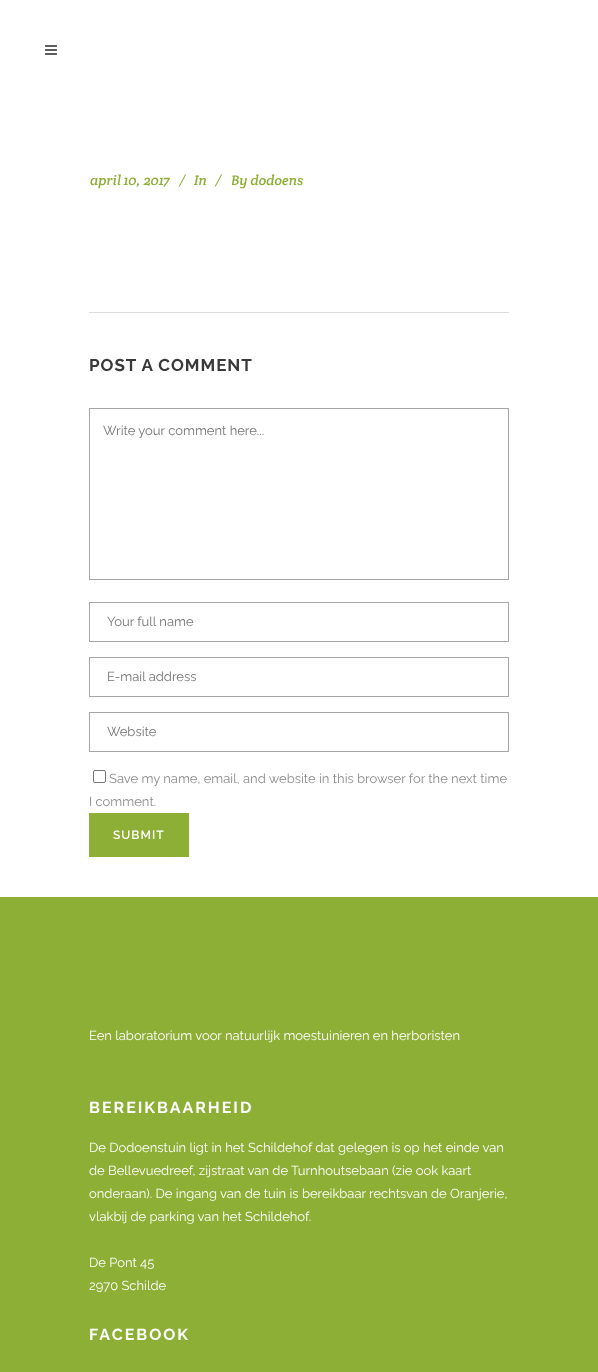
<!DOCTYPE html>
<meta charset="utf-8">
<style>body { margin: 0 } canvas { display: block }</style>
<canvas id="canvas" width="598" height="1372"></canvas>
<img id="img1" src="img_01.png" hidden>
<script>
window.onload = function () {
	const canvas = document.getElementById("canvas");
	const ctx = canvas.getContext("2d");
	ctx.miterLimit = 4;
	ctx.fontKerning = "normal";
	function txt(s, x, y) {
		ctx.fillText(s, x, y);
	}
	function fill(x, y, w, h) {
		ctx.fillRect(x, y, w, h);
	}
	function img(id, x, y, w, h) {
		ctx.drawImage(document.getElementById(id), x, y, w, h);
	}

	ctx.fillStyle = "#FFFFFF";
	fill(0, 0, 598, 1372);
	img("img1", 45, 45, 12, 10);
	ctx.fillStyle = "#DDDDDD";
	fill(89, 312, 420, 1);
	ctx.strokeStyle = "#A7A6A6";
	ctx.strokeRect(89.5, 408.5, 419, 171);
	ctx.strokeRect(89.5, 602.5, 419, 39);
	ctx.strokeRect(89.5, 657.5, 419, 39);
	ctx.strokeRect(89.5, 712.5, 419, 39);
	ctx.beginPath();
	ctx.roundRect(93.5, 770.5, 12, 12, 1.5);
	ctx.strokeStyle = "#767676";
	ctx.stroke();
	ctx.fillStyle = "#8DAF36";
	fill(89, 813, 100, 44);
	fill(0, 897, 598, 475);
	ctx.font = "italic 14px Crete Round";
	txt("april 10, 2017", 90, 185);
	txt("/", 179, 185);
	txt("In", 194, 185);
	txt("/", 215, 185);
	txt("By dodoens", 231, 185);
	ctx.letterSpacing = "1px";
	ctx.font = "bold 17px Raleway";
	ctx.fillStyle = "#393939";
	txt("POST A COMMENT", 89, 371);
	ctx.letterSpacing = "0px";
	ctx.font = "13px Raleway";
	ctx.fillStyle = "#757575";
	txt("Write your comment here...", 103, 435);
	txt("Your full name", 107, 626);
	txt("E-mail address", 107, 681);
	txt("Website", 107, 736);
	ctx.fillStyle = "#8D8D8D";
	txt("Save my name, email, and website in this browser for the next time", 109, 783);
	txt("I comment.", 89, 806);
	ctx.letterSpacing = "1px";
	ctx.font = "600 12px Raleway";
	ctx.fillStyle = "#FFFFFF";
	txt("SUBMIT", 113, 839);
	ctx.letterSpacing = "0px";
	ctx.font = "13px Raleway";
	txt("Een laboratorium voor natuurlijk moestuinieren en herboristen", 89, 1040);
	ctx.letterSpacing = "2px";
	ctx.font = "bold 16px Raleway";
	txt("BEREIKBAARHEID", 89, 1113);
	ctx.letterSpacing = "0px";
	ctx.font = "13px Raleway";
	txt("De Dodoenstuin ligt in het Schildehof dat gelegen is op het einde van", 89, 1152);
	txt("de Bellevuedreef, zijstraat van de Turnhoutsebaan (zie ook kaart", 89, 1175);
	txt("onderaan). De ingang van de tuin is bereikbaar rechtsvan de Oranjerie,", 89, 1198);
	txt("vlakbij de parking van het Schildehof.", 89, 1221);
	txt("De Pont 45", 89, 1267);
	txt("2970 Schilde", 89, 1290);
	ctx.letterSpacing = "2px";
	ctx.font = "bold 16px Raleway";
	txt("FACEBOOK", 89, 1340);
};
</script>
